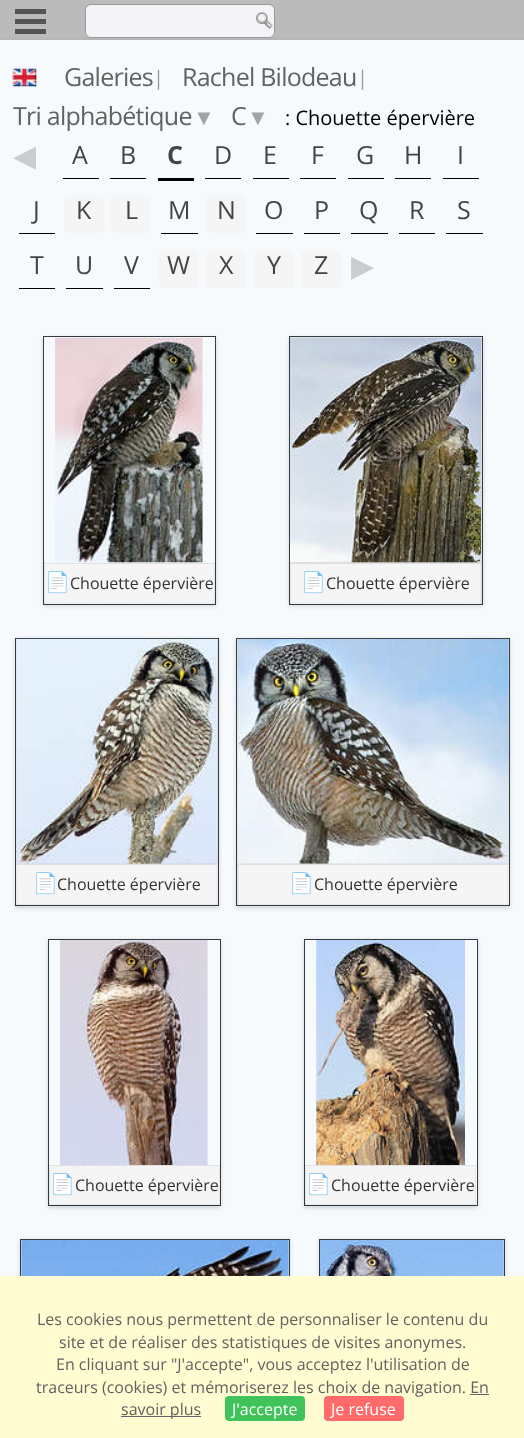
<!DOCTYPE html>
<meta charset="utf-8">
<style>body { margin: 0 } canvas { display: block }</style>
<canvas id="canvas" width="524" height="1438"></canvas>
<img id="img1" src="img_01.png" hidden>
<img id="img2" src="img_02.png" hidden>
<img id="img3" src="img_03.png" hidden>
<img id="img4" src="img_04.png" hidden>
<img id="img5" src="img_05.png" hidden>
<img id="img6" src="img_06.png" hidden>
<img id="img7" src="img_07.png" hidden>
<img id="img8" src="img_08.png" hidden>
<img id="img9" src="img_09.png" hidden>
<img id="img10" src="img_10.png" hidden>
<script>
window.onload = function () {
	const canvas = document.getElementById("canvas");
	const ctx = canvas.getContext("2d");
	ctx.miterLimit = 4;
	ctx.fontKerning = "none";
	function txt(s, x, y) {
		ctx.fillText(s, x, y);
	}
	function fill(x, y, w, h) {
		ctx.fillRect(x, y, w, h);
	}
	function round(x, y, w, h, r) {
		ctx.beginPath();
		ctx.roundRect(x, y, w, h, r);
		ctx.fill();
	}
	function img(id, x, y, w, h) {
		ctx.drawImage(document.getElementById(id), x, y, w, h);
	}
	let gradient;

	ctx.fillStyle = "#FFFFFF";
	fill(0, 0, 524, 1438);
	gradient = ctx.createLinearGradient(262, 0, 263, 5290);
	gradient.addColorStop(0, "#BBBBBB");
	gradient.addColorStop(0.06, "#BBBBBB");
	gradient.addColorStop(0.11, "#DDDDDD");
	gradient.addColorStop(0.9, "#FFFFFF");
	gradient.addColorStop(1, "#FFFFFF");
	ctx.fillStyle = gradient;
	fill(0, 0, 524, 40);
	ctx.fillStyle = "#555555";
	fill(15, 29, 31, 5);
	fill(15, 19, 31, 5);
	fill(15, 9, 31, 5);
	ctx.fillStyle = "rgba(0, 0, 0, 0.12)";
	ctx.filter = "blur(2px)";
	ctx.beginPath();
	ctx.rect(0, 41, 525, 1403);
	ctx.fill();
	ctx.filter = "none";
	ctx.fillStyle = "#F3F3F8";
	ctx.beginPath();
	ctx.roundRect(85.5, 4.5, 189, 33, 5.5);
	ctx.fill();
	ctx.strokeStyle = "#999999";
	ctx.stroke();
	fill(86, 8, 1, 25);
	img("img1", 256, 12, 17, 17);
	ctx.fillStyle = "#F7FAFC";
	fill(0, 40, 524, 1236);
	img("img2", 12, 67, 25, 20);
	ctx.fillStyle = "#000000";
	fill(63, 178, 36, 1);
	fill(110, 178, 36, 1);
	fill(158, 178, 36, 3);
	fill(205, 178, 36, 1);
	fill(253, 178, 36, 1);
	fill(300, 178, 36, 1);
	fill(348, 178, 36, 1);
	fill(395, 178, 36, 1);
	fill(443, 178, 36, 1);
	fill(19, 233, 36, 1);
	ctx.fillStyle = "#F5F5F5";
	round(64, 196, 40, 37, 4);
	round(111, 196, 40, 37, 4);
	ctx.fillStyle = "#000000";
	fill(161, 233, 37, 1);
	ctx.fillStyle = "#F5F5F5";
	round(206, 196, 40, 37, 4);
	ctx.fillStyle = "#000000";
	fill(256, 233, 37, 1);
	fill(304, 233, 36, 1);
	fill(351, 233, 37, 1);
	fill(399, 233, 36, 1);
	fill(446, 233, 37, 1);
	fill(19, 288, 36, 1);
	fill(66, 288, 37, 1);
	fill(114, 288, 36, 1);
	ctx.fillStyle = "#F5F5F5";
	round(159, 251, 40, 37, 4);
	round(206, 251, 40, 37, 4);
	round(254, 251, 40, 37, 4);
	round(301, 251, 40, 37, 4);
	ctx.save();
	ctx.beginPath();
	ctx.moveTo(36, 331);
	ctx.lineTo(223, 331);
	ctx.lineTo(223, 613);
	ctx.lineTo(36, 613);
	ctx.closePath();
	ctx.moveTo(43, 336);
	ctx.lineTo(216, 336);
	ctx.lineTo(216, 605);
	ctx.lineTo(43, 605);
	ctx.closePath();
	ctx.clip("evenodd");
	ctx.fillStyle = "rgba(0, 0, 0, 0.15)";
	ctx.filter = "blur(2px)";
	ctx.beginPath();
	ctx.rect(43, 338, 173, 268);
	ctx.fill();
	ctx.filter = "none";
	ctx.restore();
	ctx.strokeStyle = "#343C43";
	ctx.strokeRect(43.5, 336.5, 172, 268);
	img("img3", 55, 337, 148, 226);
	fill(44, 564, 171, 40);
	ctx.fillStyle = "#E0E0E0";
	fill(44, 563, 171, 1);
	ctx.save();
	ctx.beginPath();
	ctx.rect(44, 338, 171, 266);
	ctx.clip();
	ctx.beginPath();
	ctx.moveTo(214.5, 562.5);
	ctx.lineTo(214.5, 604);
	ctx.strokeStyle = "#DADADA";
	ctx.lineWidth = 1.2;
	ctx.setLineDash([1.25, 1.25]);
	ctx.stroke();
	ctx.restore();
	ctx.beginPath();
	ctx.moveTo(44, 603);
	ctx.lineTo(215, 603);
	ctx.strokeStyle = "#DADADA";
	ctx.lineWidth = 1.2;
	ctx.setLineDash([1.25, 1.25]);
	ctx.stroke();
	ctx.save();
	ctx.beginPath();
	ctx.rect(44, 338, 171, 266);
	ctx.clip();
	ctx.beginPath();
	ctx.moveTo(44.5, 562.5);
	ctx.lineTo(44.5, 604);
	ctx.stroke();
	ctx.restore();
	ctx.fillStyle = "rgba(0, 0, 0, 0.15)";
	ctx.filter = "blur(2px)";
	ctx.beginPath();
	ctx.rect(289, 338, 194, 268);
	ctx.fill();
	ctx.filter = "none";
	ctx.strokeStyle = "#343C43";
	ctx.lineWidth = 1;
	ctx.setLineDash([]);
	ctx.strokeRect(289.5, 336.5, 193, 268);
	img("img4", 290, 337, 192, 226);
	ctx.fillStyle = "#F5F5F5";
	fill(290, 564, 191, 40);
	ctx.fillStyle = "#E0E0E0";
	fill(290, 563, 191, 1);
	ctx.save();
	ctx.beginPath();
	ctx.rect(290, 338, 191, 266);
	ctx.clip();
	ctx.beginPath();
	ctx.moveTo(480.5, 562.5);
	ctx.lineTo(480.5, 604);
	ctx.strokeStyle = "#DADADA";
	ctx.lineWidth = 1.2;
	ctx.setLineDash([1.25, 1.25]);
	ctx.stroke();
	ctx.restore();
	ctx.beginPath();
	ctx.moveTo(290, 603);
	ctx.lineTo(481, 603);
	ctx.strokeStyle = "#DADADA";
	ctx.lineWidth = 1.2;
	ctx.setLineDash([1.25, 1.25]);
	ctx.stroke();
	ctx.save();
	ctx.beginPath();
	ctx.rect(290, 338, 191, 266);
	ctx.clip();
	ctx.beginPath();
	ctx.moveTo(290.5, 562.5);
	ctx.lineTo(290.5, 604);
	ctx.stroke();
	ctx.restore();
	ctx.fillStyle = "rgba(0, 0, 0, 0.15)";
	ctx.filter = "blur(2px)";
	ctx.beginPath();
	ctx.rect(15, 639, 204, 269);
	ctx.fill();
	ctx.filter = "none";
	ctx.strokeStyle = "#343C43";
	ctx.lineWidth = 1;
	ctx.setLineDash([]);
	ctx.strokeRect(15.5, 638.5, 203, 267);
	img("img5", 16, 638, 202, 226);
	ctx.fillStyle = "#F5F5F5";
	fill(16, 865, 202, 40);
	ctx.fillStyle = "#E0E0E0";
	fill(16, 864, 202, 1);
	ctx.beginPath();
	ctx.moveTo(217, 864);
	ctx.lineTo(217, 905);
	ctx.strokeStyle = "#DADADA";
	ctx.lineWidth = 1.2;
	ctx.setLineDash([1.25, 1.25]);
	ctx.stroke();
	ctx.save();
	ctx.beginPath();
	ctx.rect(16, 639, 202, 266);
	ctx.clip();
	ctx.beginPath();
	ctx.moveTo(16, 904.5);
	ctx.lineTo(217.5, 904.5);
	ctx.stroke();
	ctx.restore();
	ctx.beginPath();
	ctx.moveTo(17, 864);
	ctx.lineTo(17, 905);
	ctx.stroke();
	ctx.fillStyle = "rgba(0, 0, 0, 0.15)";
	ctx.filter = "blur(2px)";
	ctx.beginPath();
	ctx.rect(236, 639, 274, 269);
	ctx.fill();
	ctx.filter = "none";
	ctx.strokeStyle = "#343C43";
	ctx.lineWidth = 1;
	ctx.setLineDash([]);
	ctx.strokeRect(236.5, 638.5, 273, 267);
	img("img6", 237, 638, 272, 226);
	ctx.fillStyle = "#F5F5F5";
	fill(238, 865, 271, 40);
	ctx.fillStyle = "#E0E0E0";
	fill(238, 864, 271, 1);
	ctx.beginPath();
	ctx.moveTo(508, 864);
	ctx.lineTo(508, 905);
	ctx.strokeStyle = "#DADADA";
	ctx.lineWidth = 1.2;
	ctx.setLineDash([1.25, 1.25]);
	ctx.stroke();
	ctx.save();
	ctx.beginPath();
	ctx.rect(238, 639, 271, 266);
	ctx.clip();
	ctx.beginPath();
	ctx.moveTo(237.5, 904.5);
	ctx.lineTo(509, 904.5);
	ctx.stroke();
	ctx.beginPath();
	ctx.moveTo(238, 864);
	ctx.lineTo(238, 905);
	ctx.stroke();
	ctx.restore();
	ctx.save();
	ctx.beginPath();
	ctx.moveTo(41, 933);
	ctx.lineTo(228, 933);
	ctx.lineTo(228, 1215);
	ctx.lineTo(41, 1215);
	ctx.closePath();
	ctx.moveTo(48, 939);
	ctx.lineTo(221, 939);
	ctx.lineTo(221, 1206);
	ctx.lineTo(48, 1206);
	ctx.closePath();
	ctx.clip("evenodd");
	ctx.fillStyle = "rgba(0, 0, 0, 0.15)";
	ctx.filter = "blur(2px)";
	ctx.beginPath();
	ctx.rect(48, 940, 173, 268);
	ctx.fill();
	ctx.filter = "none";
	ctx.restore();
	ctx.strokeStyle = "#343C43";
	ctx.lineWidth = 1;
	ctx.setLineDash([]);
	ctx.strokeRect(48.5, 939.5, 172, 266);
	img("img7", 60, 940, 148, 225);
	ctx.fillStyle = "#F5F5F5";
	fill(49, 1166, 171, 39);
	ctx.fillStyle = "#E0E0E0";
	fill(49, 1165, 171, 1);
	ctx.save();
	ctx.beginPath();
	ctx.rect(49, 940, 171, 265);
	ctx.clip();
	ctx.beginPath();
	ctx.moveTo(219.5, 1165);
	ctx.lineTo(219.5, 1205);
	ctx.strokeStyle = "#DADADA";
	ctx.lineWidth = 1.2;
	ctx.setLineDash([1.25, 1.25]);
	ctx.stroke();
	ctx.beginPath();
	ctx.moveTo(49, 1204.5);
	ctx.lineTo(220, 1204.5);
	ctx.stroke();
	ctx.beginPath();
	ctx.moveTo(49.5, 1165);
	ctx.lineTo(49.5, 1205);
	ctx.stroke();
	ctx.restore();
	ctx.save();
	ctx.beginPath();
	ctx.moveTo(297, 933);
	ctx.lineTo(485, 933);
	ctx.lineTo(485, 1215);
	ctx.lineTo(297, 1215);
	ctx.closePath();
	ctx.moveTo(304, 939);
	ctx.lineTo(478, 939);
	ctx.lineTo(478, 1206);
	ctx.lineTo(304, 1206);
	ctx.closePath();
	ctx.clip("evenodd");
	ctx.fillStyle = "rgba(0, 0, 0, 0.15)";
	ctx.filter = "blur(2px)";
	ctx.beginPath();
	ctx.rect(304, 940, 174, 268);
	ctx.fill();
	ctx.filter = "none";
	ctx.restore();
	ctx.strokeRect(304.5, 939.5, 173, 266);
	img("img8", 316, 940, 149, 225);
	ctx.fillStyle = "#F5F5F5";
	fill(305, 1166, 171, 39);
	ctx.fillStyle = "#E0E0E0";
	fill(305, 1165, 171, 1);
	ctx.save();
	ctx.beginPath();
	ctx.rect(305, 940, 171, 265);
	ctx.clip();
	ctx.beginPath();
	ctx.moveTo(475.5, 1165);
	ctx.lineTo(475.5, 1205);
	ctx.strokeStyle = "#DADADA";
	ctx.lineWidth = 1.2;
	ctx.setLineDash([1.25, 1.25]);
	ctx.stroke();
	ctx.beginPath();
	ctx.moveTo(305, 1204.5);
	ctx.lineTo(476, 1204.5);
	ctx.stroke();
	ctx.beginPath();
	ctx.moveTo(305.5, 1165);
	ctx.lineTo(305.5, 1205);
	ctx.stroke();
	ctx.restore();
	ctx.fillStyle = "rgba(0, 0, 0, 0.15)";
	ctx.filter = "blur(2px)";
	ctx.beginPath();
	ctx.rect(20, 1240, 270, 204);
	ctx.fill();
	ctx.filter = "none";
	ctx.strokeRect(20.5, 1239.5, 269, 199);
	img("img9", 21, 1240, 268, 36);
	ctx.filter = "blur(2px)";
	ctx.beginPath();
	ctx.rect(319, 1240, 186, 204);
	ctx.fill();
	ctx.filter = "none";
	ctx.strokeRect(319.5, 1239.5, 185, 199);
	img("img10", 320, 1240, 184, 36);
	ctx.fillStyle = "#FFFCD1";
	fill(0, 1276, 524, 162);
	ctx.fillStyle = "#666666";
	fill(121, 1416, 80, 1);
	ctx.letterSpacing = "-0.75px";
	ctx.font = "25px Open Sans";
	ctx.fillStyle = "#626262";
	txt("Galeries", 64, 86);
	ctx.letterSpacing = "0px";
	ctx.font = "20px Open Sans";
	ctx.fillStyle = "#999999";
	txt("|", 153, 85);
	ctx.letterSpacing = "-0.75px";
	ctx.font = "25px Open Sans";
	ctx.fillStyle = "#626262";
	txt("Rachel Bilodeau", 182, 86);
	ctx.letterSpacing = "0px";
	ctx.font = "20px Open Sans";
	ctx.fillStyle = "#999999";
	txt("|", 357, 85);
	ctx.letterSpacing = "-0.75px";
	ctx.font = "25px Open Sans";
	ctx.fillStyle = "#626262";
	txt("Tri alphabétique", 13, 125);
	ctx.letterSpacing = "0px";
	ctx.font = "22px Liberation Sans";
	ctx.fillStyle = "#A3A3A3";
	txt("▼", 193, 125);
	ctx.letterSpacing = "-0.75px";
	ctx.font = "25px Open Sans";
	ctx.fillStyle = "#626262";
	txt("C", 231, 125);
	ctx.letterSpacing = "0px";
	ctx.font = "22px Liberation Sans";
	ctx.fillStyle = "#A3A3A3";
	txt("▼", 247, 125);
	ctx.font = "20px Open Sans";
	ctx.fillStyle = "#000000";
	txt(": Chouette épervière", 285, 125);
	ctx.letterSpacing = "-1px";
	ctx.font = "30px DejaVu Sans";
	ctx.fillStyle = "#CACCCE";
	txt("◀", 13, 166);
	ctx.font = "25px Open Sans";
	ctx.fillStyle = "#434444";
	txt("A", 72, 164);
	txt("B", 120, 164);
	ctx.font = "bold 25px Open Sans";
	txt("C", 167, 164);
	ctx.font = "25px Open Sans";
	txt("D", 214, 164);
	txt("E", 263, 164);
	txt("F", 311, 164);
	txt("G", 356, 164);
	txt("H", 404, 164);
	txt("I", 457, 164);
	txt("J", 33, 219);
	ctx.letterSpacing = "0px";
	txt("K", 76, 219);
	txt("L", 125, 219);
	ctx.letterSpacing = "-1px";
	txt("M", 168, 219);
	ctx.letterSpacing = "0px";
	txt("N", 217, 219);
	ctx.letterSpacing = "-1px";
	txt("O", 264, 219);
	txt("P", 314, 219);
	txt("Q", 359, 219);
	txt("R", 409, 219);
	txt("S", 457, 219);
	txt("T", 30, 274);
	txt("U", 75, 274);
	txt("V", 124, 274);
	ctx.letterSpacing = "0px";
	txt("W", 167, 274);
	txt("X", 219, 274);
	txt("Y", 267, 274);
	txt("Z", 314, 274);
	ctx.letterSpacing = "-1px";
	ctx.font = "30px DejaVu Sans";
	ctx.fillStyle = "#CACCCE";
	txt("▶", 351, 276);
	ctx.letterSpacing = "0px";
	ctx.font = "20px Noto Color Emoji";
	ctx.fillStyle = "#333333";
	txt("📄", 45, 589);
	ctx.font = "16px Open Sans";
	txt("Chouette épervière", 70, 589);
	ctx.font = "20px Noto Color Emoji";
	txt("📄", 301, 589);
	ctx.font = "16px Open Sans";
	txt("Chouette épervière", 326, 589);
	ctx.font = "20px Noto Color Emoji";
	txt("📄", 33, 890);
	ctx.font = "16px Open Sans";
	txt("Chouette épervière", 57, 890);
	ctx.font = "20px Noto Color Emoji";
	txt("📄", 289, 890);
	ctx.font = "16px Open Sans";
	txt("Chouette épervière", 314, 890);
	ctx.font = "20px Noto Color Emoji";
	txt("📄", 50, 1191);
	ctx.font = "16px Open Sans";
	txt("Chouette épervière", 75, 1191);
	ctx.font = "20px Noto Color Emoji";
	txt("📄", 306, 1191);
	ctx.font = "16px Open Sans";
	txt("Chouette épervière", 331, 1191);
	ctx.fillStyle = "#626262";
	txt("Les cookies nous permettent de personnaliser le contenu du", 37, 1325);
	txt("site et de réaliser des statistiques de visites anonymes.", 59, 1348);
	txt("En cliquant sur \"J'accepte\", vous acceptez l'utilisation de", 56, 1370);
	txt("traceurs (cookies) et mémoriserez les choix de navigation. En", 36, 1393);
	txt("savoir plus", 121, 1415);
	ctx.fillStyle = "#666666";
	fill(470, 1394, 19, 1);
	ctx.fillStyle = "#3FC35A";
	round(225, 1396, 80, 25, 4);
	ctx.fillStyle = "#FFFFFF";
	txt("J'accepte", 232, 1415);
	ctx.fillStyle = "#FF6B6B";
	round(324, 1396, 80, 25, 4);
	ctx.fillStyle = "#FFFFFF";
	txt("Je refuse", 331, 1415);
};
</script>
